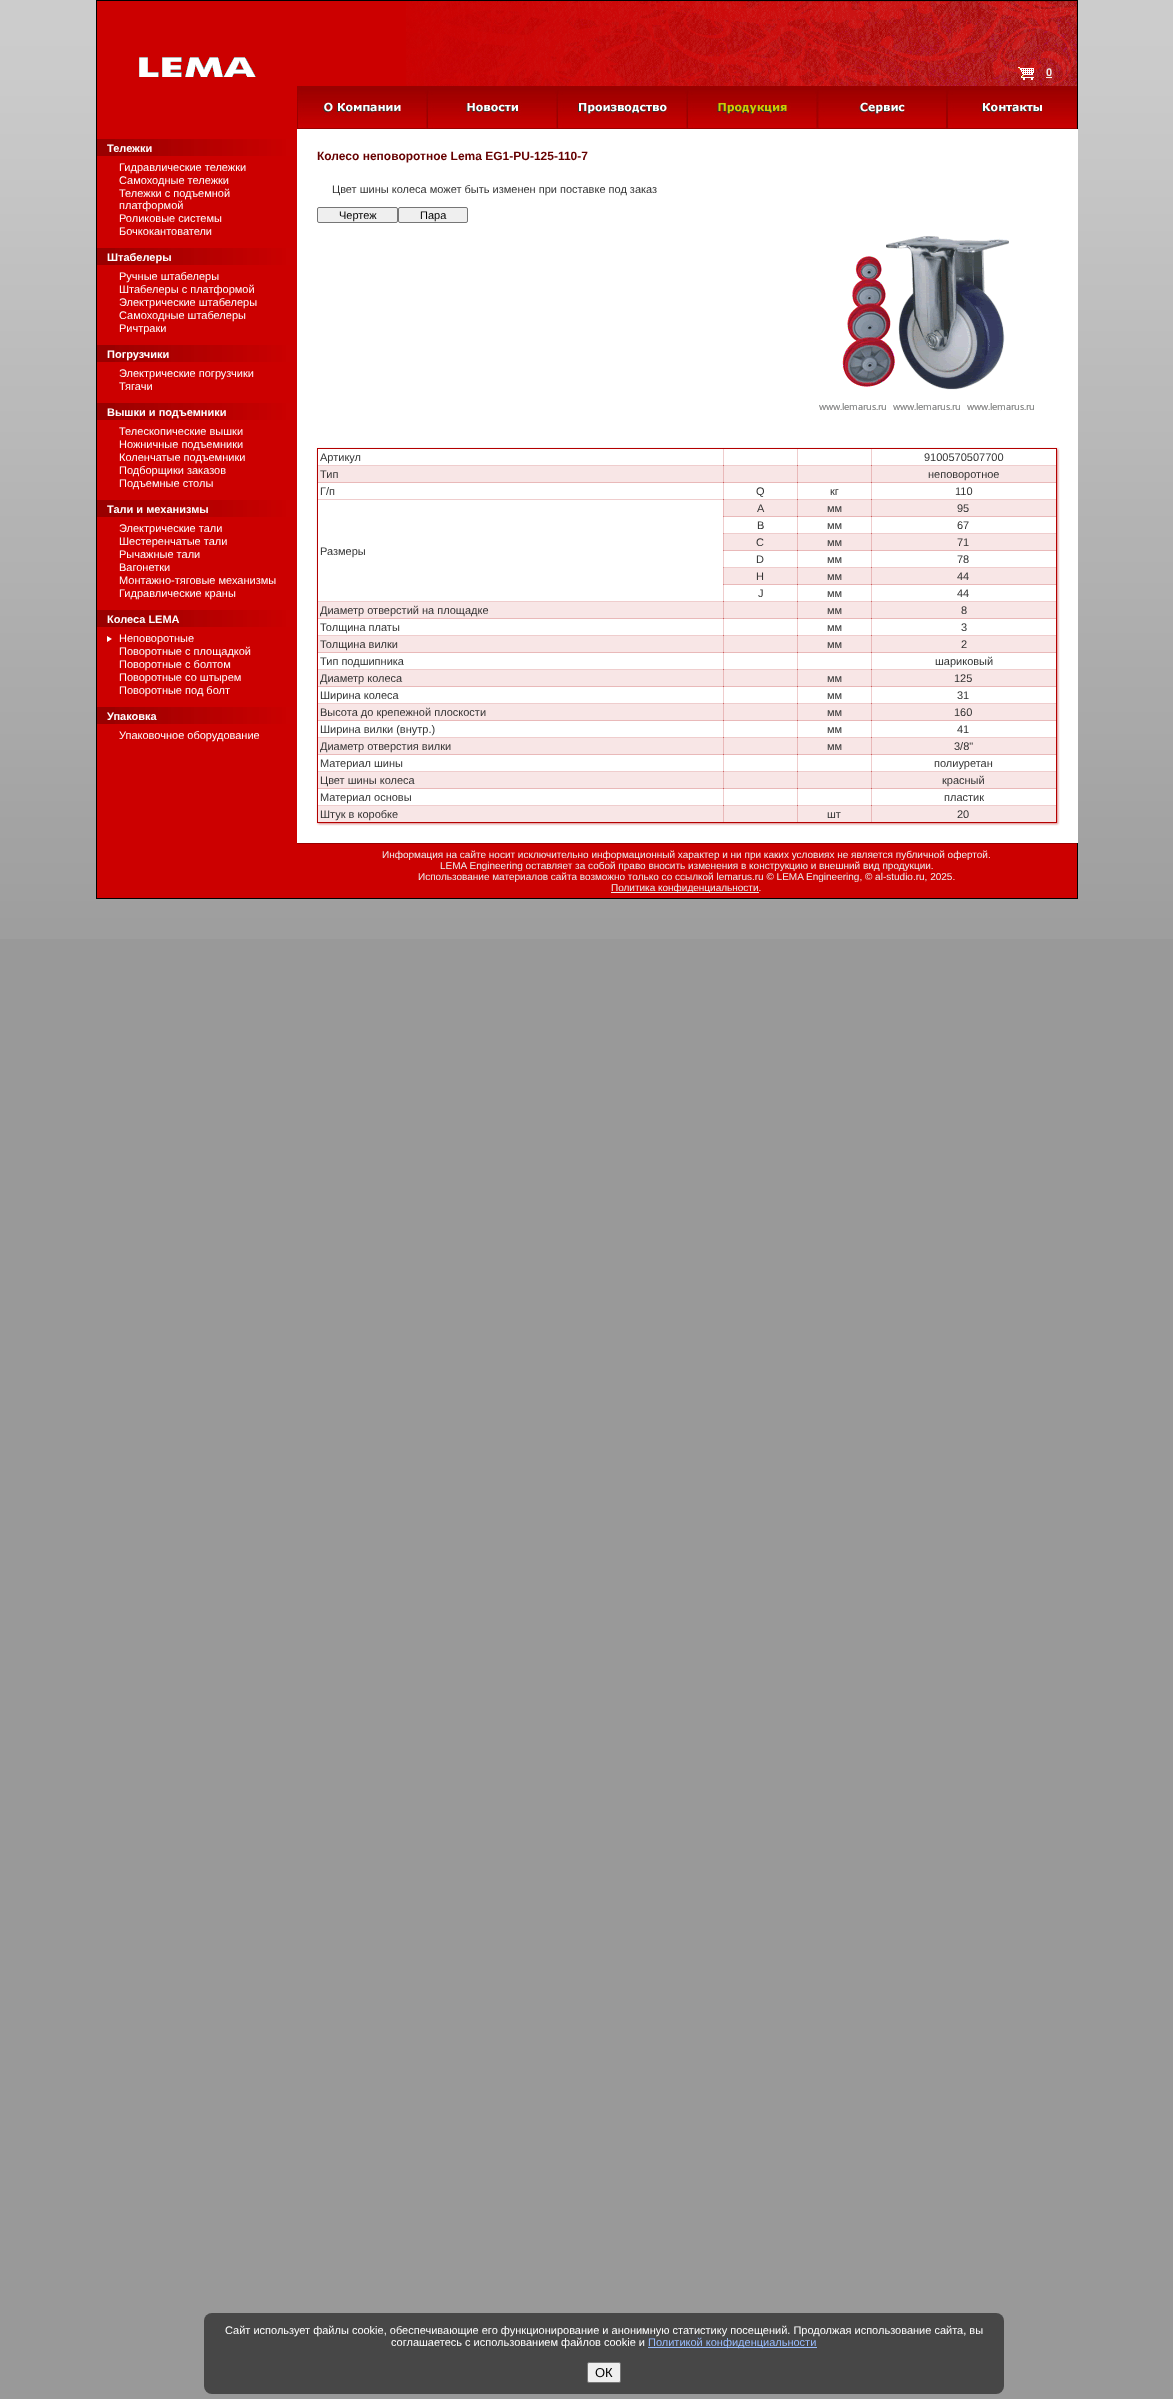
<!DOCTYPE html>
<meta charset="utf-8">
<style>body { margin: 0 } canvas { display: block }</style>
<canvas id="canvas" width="1173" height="2399"></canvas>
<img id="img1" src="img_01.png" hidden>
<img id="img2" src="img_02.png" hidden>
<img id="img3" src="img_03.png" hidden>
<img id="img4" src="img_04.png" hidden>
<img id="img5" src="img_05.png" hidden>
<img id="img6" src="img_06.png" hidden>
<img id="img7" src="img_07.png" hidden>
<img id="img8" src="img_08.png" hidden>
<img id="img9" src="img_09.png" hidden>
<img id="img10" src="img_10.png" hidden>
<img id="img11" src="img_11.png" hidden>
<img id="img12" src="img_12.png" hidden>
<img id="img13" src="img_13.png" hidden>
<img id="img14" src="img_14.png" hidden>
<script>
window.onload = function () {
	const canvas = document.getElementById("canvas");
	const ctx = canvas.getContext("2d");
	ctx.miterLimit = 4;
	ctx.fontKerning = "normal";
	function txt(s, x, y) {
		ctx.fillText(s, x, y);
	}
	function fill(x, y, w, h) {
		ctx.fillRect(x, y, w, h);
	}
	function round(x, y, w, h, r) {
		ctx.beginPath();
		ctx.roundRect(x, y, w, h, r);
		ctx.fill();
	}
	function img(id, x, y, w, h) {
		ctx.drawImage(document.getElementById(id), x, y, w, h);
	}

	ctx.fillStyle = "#999999";
	fill(0, 0, 1173, 2399);
	img("img1", 0, 936, 1173, 3);
	img("img2", 0, 0, 1173, 936);
	ctx.fillStyle = "#CC0000";
	fill(97, 1, 309, 128);
	img("img3", 406, 1, 671, 85);
	ctx.fillStyle = "#000000";
	fill(96, 0, 982, 1);
	fill(1077, 0, 1, 129);
	fill(96, 0, 1, 843);
	img("img4", 139, 57, 117, 20);
	img("img5", 1018, 67, 16, 13);
	ctx.fillStyle = "#EEEEEE";
	fill(1046, 77, 6, 1);
	img("img6", 297, 86, 130, 43);
	img("img7", 427, 86, 130, 43);
	img("img8", 557, 86, 130, 43);
	img("img9", 687, 86, 130, 43);
	img("img10", 817, 86, 130, 43);
	img("img11", 947, 86, 130, 43);
	ctx.fillStyle = "#CC0000";
	fill(97, 129, 200, 714);
	ctx.fillStyle = "#FFFFFF";
	fill(297, 129, 781, 714);
	ctx.fillStyle = "#990000";
	fill(97, 139, 18, 17);
	img("img12", 115, 139, 182, 17);
	fill(97, 248, 18, 17);
	img("img12", 115, 248, 182, 17);
	fill(97, 345, 18, 17);
	img("img12", 115, 345, 182, 17);
	fill(97, 403, 18, 17);
	img("img12", 115, 403, 182, 17);
	fill(97, 500, 18, 17);
	img("img12", 115, 500, 182, 17);
	fill(97, 610, 18, 17);
	img("img12", 115, 610, 182, 17);
	img("img13", 107, 636, 5, 6);
	fill(97, 707, 18, 17);
	img("img12", 115, 707, 182, 17);
	ctx.fillStyle = "#EFEFEF";
	ctx.beginPath();
	ctx.roundRect(317.5, 207.5, 80, 15, 1.5);
	ctx.fill();
	ctx.strokeStyle = "#767676";
	ctx.stroke();
	ctx.beginPath();
	ctx.roundRect(398.5, 207.5, 69, 15, 1.5);
	ctx.fill();
	ctx.stroke();
	img("img14", 819, 236, 215, 175);
	ctx.save();
	ctx.beginPath();
	ctx.moveTo(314, 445);
	ctx.lineTo(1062, 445);
	ctx.lineTo(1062, 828);
	ctx.lineTo(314, 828);
	ctx.closePath();
	ctx.moveTo(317, 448);
	ctx.lineTo(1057, 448);
	ctx.lineTo(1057, 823);
	ctx.lineTo(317, 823);
	ctx.closePath();
	ctx.clip("evenodd");
	ctx.fillStyle = "rgba(180, 0, 0, 0.5)";
	ctx.filter = "blur(1px)";
	ctx.beginPath();
	ctx.rect(318, 449, 740, 375);
	ctx.fill();
	ctx.filter = "none";
	ctx.restore();
	ctx.fillStyle = "#B40000";
	fill(317, 448, 740, 1);
	fill(1056, 448, 1, 375);
	fill(317, 822, 740, 1);
	fill(317, 448, 1, 375);
	ctx.fillStyle = "rgba(180, 0, 0, 0.1)";
	fill(871, 465, 186, 1);
	ctx.fillStyle = "#F8E6E6";
	fill(318, 466, 738, 17);
	ctx.fillStyle = "rgba(180, 0, 0, 0.1)";
	fill(871, 482, 186, 1);
	fill(871, 499, 186, 1);
	ctx.fillStyle = "#F8E6E6";
	fill(723, 500, 333, 17);
	ctx.fillStyle = "rgba(180, 0, 0, 0.1)";
	fill(871, 516, 186, 1);
	fill(871, 533, 186, 1);
	ctx.fillStyle = "#F8E6E6";
	fill(723, 534, 333, 17);
	ctx.fillStyle = "rgba(180, 0, 0, 0.1)";
	fill(871, 550, 186, 1);
	fill(871, 567, 186, 1);
	ctx.fillStyle = "#F8E6E6";
	fill(723, 568, 333, 17);
	ctx.fillStyle = "rgba(180, 0, 0, 0.1)";
	fill(871, 584, 186, 1);
	fill(871, 601, 186, 1);
	ctx.fillStyle = "#F8E6E6";
	fill(318, 602, 738, 17);
	ctx.fillStyle = "rgba(180, 0, 0, 0.1)";
	fill(871, 618, 186, 1);
	fill(871, 635, 186, 1);
	ctx.fillStyle = "#F8E6E6";
	fill(318, 636, 738, 17);
	ctx.fillStyle = "rgba(180, 0, 0, 0.1)";
	fill(871, 652, 186, 1);
	fill(871, 669, 186, 1);
	ctx.fillStyle = "#F8E6E6";
	fill(318, 670, 738, 17);
	ctx.fillStyle = "rgba(180, 0, 0, 0.1)";
	fill(871, 686, 186, 1);
	fill(871, 703, 186, 1);
	ctx.fillStyle = "#F8E6E6";
	fill(318, 704, 738, 17);
	ctx.fillStyle = "rgba(180, 0, 0, 0.1)";
	fill(871, 720, 186, 1);
	fill(871, 737, 186, 1);
	ctx.fillStyle = "#F8E6E6";
	fill(318, 738, 738, 17);
	ctx.fillStyle = "rgba(180, 0, 0, 0.1)";
	fill(871, 754, 186, 1);
	fill(871, 771, 186, 1);
	ctx.fillStyle = "#F8E6E6";
	fill(318, 772, 738, 17);
	ctx.fillStyle = "rgba(180, 0, 0, 0.1)";
	fill(871, 788, 186, 1);
	fill(871, 805, 186, 1);
	ctx.fillStyle = "#F8E6E6";
	fill(318, 806, 738, 16);
	ctx.fillStyle = "rgba(180, 0, 0, 0.1)";
	fill(871, 805, 1, 18);
	fill(797, 805, 75, 1);
	fill(871, 805, 1, 18);
	fill(871, 805, 186, 1);
	fill(871, 788, 1, 18);
	fill(797, 788, 75, 1);
	fill(871, 788, 1, 18);
	fill(871, 788, 186, 1);
	fill(871, 771, 1, 18);
	fill(797, 771, 75, 1);
	fill(871, 771, 1, 18);
	fill(871, 771, 186, 1);
	fill(871, 754, 1, 18);
	fill(797, 754, 75, 1);
	fill(871, 754, 1, 18);
	fill(871, 754, 186, 1);
	fill(871, 737, 1, 18);
	fill(797, 737, 75, 1);
	fill(871, 737, 1, 18);
	fill(871, 737, 186, 1);
	fill(871, 720, 1, 18);
	fill(797, 720, 75, 1);
	fill(871, 720, 1, 18);
	fill(871, 720, 186, 1);
	fill(871, 703, 1, 18);
	fill(797, 703, 75, 1);
	fill(871, 703, 1, 18);
	fill(871, 703, 186, 1);
	fill(871, 686, 1, 18);
	fill(797, 686, 75, 1);
	fill(871, 686, 1, 18);
	fill(871, 686, 186, 1);
	fill(871, 669, 1, 18);
	fill(797, 669, 75, 1);
	fill(871, 669, 1, 18);
	fill(871, 669, 186, 1);
	fill(871, 652, 1, 18);
	fill(797, 652, 75, 1);
	fill(871, 652, 1, 18);
	fill(871, 652, 186, 1);
	fill(871, 635, 1, 18);
	fill(797, 635, 75, 1);
	fill(871, 635, 1, 18);
	fill(871, 635, 186, 1);
	fill(871, 618, 1, 18);
	fill(797, 618, 75, 1);
	fill(871, 618, 1, 18);
	fill(871, 618, 186, 1);
	fill(871, 601, 1, 18);
	fill(797, 601, 75, 1);
	fill(871, 601, 1, 18);
	fill(871, 601, 186, 1);
	fill(871, 584, 1, 18);
	fill(797, 584, 75, 1);
	fill(871, 584, 1, 18);
	fill(871, 584, 186, 1);
	fill(871, 567, 1, 18);
	fill(797, 567, 75, 1);
	fill(871, 567, 1, 18);
	fill(871, 567, 186, 1);
	fill(871, 550, 1, 18);
	fill(797, 550, 75, 1);
	fill(871, 550, 1, 18);
	fill(871, 550, 186, 1);
	fill(871, 533, 1, 18);
	fill(797, 533, 75, 1);
	fill(871, 533, 1, 18);
	fill(871, 533, 186, 1);
	fill(871, 516, 1, 18);
	fill(797, 516, 75, 1);
	fill(871, 516, 1, 18);
	fill(871, 516, 186, 1);
	fill(871, 499, 1, 18);
	fill(797, 499, 75, 1);
	fill(871, 499, 1, 18);
	fill(871, 499, 186, 1);
	fill(871, 482, 1, 18);
	fill(797, 482, 75, 1);
	fill(871, 482, 1, 18);
	fill(871, 482, 186, 1);
	fill(871, 465, 1, 18);
	fill(797, 465, 75, 1);
	fill(871, 465, 1, 18);
	fill(871, 465, 186, 1);
	fill(871, 448, 1, 18);
	fill(871, 448, 1, 18);
	fill(797, 805, 1, 18);
	fill(723, 805, 75, 1);
	fill(797, 805, 1, 18);
	fill(797, 805, 75, 1);
	fill(797, 788, 1, 18);
	fill(723, 788, 75, 1);
	fill(797, 788, 1, 18);
	fill(797, 788, 75, 1);
	fill(797, 771, 1, 18);
	fill(723, 771, 75, 1);
	fill(797, 771, 1, 18);
	fill(797, 771, 75, 1);
	fill(797, 754, 1, 18);
	fill(723, 754, 75, 1);
	fill(797, 754, 1, 18);
	fill(797, 754, 75, 1);
	fill(797, 737, 1, 18);
	fill(723, 737, 75, 1);
	fill(797, 737, 1, 18);
	fill(797, 737, 75, 1);
	fill(797, 720, 1, 18);
	fill(723, 720, 75, 1);
	fill(797, 720, 1, 18);
	fill(797, 720, 75, 1);
	fill(797, 703, 1, 18);
	fill(723, 703, 75, 1);
	fill(797, 703, 1, 18);
	fill(797, 703, 75, 1);
	fill(797, 686, 1, 18);
	fill(723, 686, 75, 1);
	fill(797, 686, 1, 18);
	fill(797, 686, 75, 1);
	fill(797, 669, 1, 18);
	fill(723, 669, 75, 1);
	fill(797, 669, 1, 18);
	fill(797, 669, 75, 1);
	fill(797, 652, 1, 18);
	fill(723, 652, 75, 1);
	fill(797, 652, 1, 18);
	fill(797, 652, 75, 1);
	fill(797, 635, 1, 18);
	fill(723, 635, 75, 1);
	fill(797, 635, 1, 18);
	fill(797, 635, 75, 1);
	fill(797, 618, 1, 18);
	fill(723, 618, 75, 1);
	fill(797, 618, 1, 18);
	fill(797, 618, 75, 1);
	fill(797, 601, 1, 18);
	fill(723, 601, 75, 1);
	fill(797, 601, 1, 18);
	fill(797, 601, 75, 1);
	fill(797, 584, 1, 18);
	fill(723, 584, 75, 1);
	fill(797, 584, 1, 18);
	fill(797, 584, 75, 1);
	fill(797, 567, 1, 18);
	fill(723, 567, 75, 1);
	fill(797, 567, 1, 18);
	fill(797, 567, 75, 1);
	fill(797, 550, 1, 18);
	fill(723, 550, 75, 1);
	fill(797, 550, 1, 18);
	fill(797, 550, 75, 1);
	fill(797, 533, 1, 18);
	fill(723, 533, 75, 1);
	fill(797, 533, 1, 18);
	fill(797, 533, 75, 1);
	fill(797, 516, 1, 18);
	fill(723, 516, 75, 1);
	fill(797, 516, 1, 18);
	fill(797, 516, 75, 1);
	fill(797, 499, 1, 18);
	fill(723, 499, 75, 1);
	fill(797, 499, 1, 18);
	fill(797, 499, 75, 1);
	fill(797, 482, 1, 18);
	fill(723, 482, 75, 1);
	fill(797, 482, 1, 18);
	fill(797, 482, 75, 1);
	fill(797, 465, 1, 18);
	fill(723, 465, 75, 1);
	fill(797, 465, 1, 18);
	fill(797, 465, 75, 1);
	fill(797, 448, 1, 18);
	fill(797, 448, 1, 18);
	fill(723, 805, 1, 18);
	fill(317, 805, 407, 1);
	fill(723, 805, 1, 18);
	fill(723, 805, 75, 1);
	fill(723, 788, 1, 18);
	fill(317, 788, 407, 1);
	fill(723, 788, 1, 18);
	fill(723, 788, 75, 1);
	fill(723, 771, 1, 18);
	fill(317, 771, 407, 1);
	fill(723, 771, 1, 18);
	fill(723, 771, 75, 1);
	fill(723, 754, 1, 18);
	fill(317, 754, 407, 1);
	fill(723, 754, 1, 18);
	fill(723, 754, 75, 1);
	fill(723, 737, 1, 18);
	fill(317, 737, 407, 1);
	fill(723, 737, 1, 18);
	fill(723, 737, 75, 1);
	fill(723, 720, 1, 18);
	fill(317, 720, 407, 1);
	fill(723, 720, 1, 18);
	fill(723, 720, 75, 1);
	fill(723, 703, 1, 18);
	fill(317, 703, 407, 1);
	fill(723, 703, 1, 18);
	fill(723, 703, 75, 1);
	fill(723, 686, 1, 18);
	fill(317, 686, 407, 1);
	fill(723, 686, 1, 18);
	fill(723, 686, 75, 1);
	fill(723, 669, 1, 18);
	fill(317, 669, 407, 1);
	fill(723, 669, 1, 18);
	fill(723, 669, 75, 1);
	fill(723, 652, 1, 18);
	fill(317, 652, 407, 1);
	fill(723, 652, 1, 18);
	fill(723, 652, 75, 1);
	fill(723, 635, 1, 18);
	fill(317, 635, 407, 1);
	fill(723, 635, 1, 18);
	fill(723, 635, 75, 1);
	fill(723, 618, 1, 18);
	fill(317, 618, 407, 1);
	fill(723, 618, 1, 18);
	fill(723, 618, 75, 1);
	fill(723, 601, 1, 18);
	fill(317, 601, 407, 1);
	fill(723, 601, 1, 18);
	fill(723, 601, 75, 1);
	fill(723, 584, 1, 18);
	fill(723, 584, 75, 1);
	fill(723, 567, 1, 18);
	fill(723, 567, 75, 1);
	fill(723, 550, 1, 18);
	fill(723, 550, 75, 1);
	fill(723, 533, 1, 18);
	fill(723, 533, 75, 1);
	fill(723, 516, 1, 18);
	fill(723, 516, 75, 1);
	fill(723, 499, 1, 18);
	fill(317, 499, 407, 1);
	fill(723, 499, 1, 103);
	fill(723, 499, 75, 1);
	fill(723, 482, 1, 18);
	fill(317, 482, 407, 1);
	fill(723, 482, 1, 18);
	fill(723, 482, 75, 1);
	fill(723, 465, 1, 18);
	fill(317, 465, 407, 1);
	fill(723, 465, 1, 18);
	fill(723, 465, 75, 1);
	fill(723, 448, 1, 18);
	fill(723, 448, 1, 18);
	fill(317, 465, 407, 1);
	fill(317, 482, 407, 1);
	fill(317, 499, 407, 1);
	fill(317, 601, 407, 1);
	fill(317, 618, 407, 1);
	fill(317, 635, 407, 1);
	fill(317, 652, 407, 1);
	fill(317, 669, 407, 1);
	fill(317, 686, 407, 1);
	fill(317, 703, 407, 1);
	fill(317, 720, 407, 1);
	fill(317, 737, 407, 1);
	fill(317, 754, 407, 1);
	fill(317, 771, 407, 1);
	fill(317, 788, 407, 1);
	fill(317, 805, 407, 1);
	ctx.fillStyle = "#CC0000";
	fill(97, 843, 980, 55);
	ctx.fillStyle = "#000000";
	fill(1077, 843, 1, 56);
	fill(96, 898, 982, 1);
	fill(96, 843, 1, 56);
	ctx.fillStyle = "#990000";
	fill(297, 843, 780, 1);
	ctx.fillStyle = "#EEEEEE";
	fill(611, 892, 148, 1);
	ctx.fillStyle = "#474747";
	round(204, 2313, 800, 81, 8);
	ctx.fillStyle = "#99BDFF";
	fill(648, 2347, 169, 1);
	ctx.fillStyle = "#EFEFEF";
	ctx.beginPath();
	ctx.roundRect(587.5, 2362.5, 33, 20, 1.5);
	ctx.fill();
	ctx.stroke();
	ctx.font = "bold 11px Liberation Sans";
	ctx.fillStyle = "#EEEEEE";
	txt("0", 1046, 76);
	ctx.fillStyle = "#FFFFFF";
	txt("Тележки", 107, 152);
	ctx.font = "11px Liberation Sans";
	txt("Гидравлические тележки", 119, 171);
	txt("Самоходные тележки", 119, 184);
	txt("Тележки с подъемной", 119, 197);
	txt("платформой", 119, 209);
	txt("Роликовые системы", 119, 222);
	txt("Бочкокантователи", 119, 235);
	ctx.font = "bold 11px Liberation Sans";
	txt("Штабелеры", 107, 261);
	ctx.font = "11px Liberation Sans";
	txt("Ручные штабелеры", 119, 280);
	txt("Штабелеры с платформой", 119, 293);
	txt("Электрические штабелеры", 119, 306);
	txt("Самоходные штабелеры", 119, 319);
	txt("Ричтраки", 119, 332);
	ctx.font = "bold 11px Liberation Sans";
	txt("Погрузчики", 107, 358);
	ctx.font = "11px Liberation Sans";
	txt("Электрические погрузчики", 119, 377);
	txt("Тягачи", 119, 390);
	ctx.font = "bold 11px Liberation Sans";
	txt("Вышки и подъемники", 107, 416);
	ctx.font = "11px Liberation Sans";
	txt("Телескопические вышки", 119, 435);
	txt("Ножничные подъемники", 119, 448);
	txt("Коленчатые подъемники", 119, 461);
	txt("Подборщики заказов", 119, 474);
	txt("Подъемные столы", 119, 487);
	ctx.font = "bold 11px Liberation Sans";
	txt("Тали и механизмы", 107, 513);
	ctx.font = "11px Liberation Sans";
	txt("Электрические тали", 119, 532);
	txt("Шестеренчатые тали", 119, 545);
	txt("Рычажные тали", 119, 558);
	txt("Вагонетки", 119, 571);
	txt("Монтажно-тяговые механизмы", 119, 584);
	txt("Гидравлические краны", 119, 597);
	ctx.font = "bold 11px Liberation Sans";
	txt("Колеса LEMA", 107, 623);
	ctx.font = "11px Liberation Sans";
	txt("Неповоротные", 119, 642);
	txt("Поворотные с площадкой", 119, 655);
	txt("Поворотные с болтом", 119, 668);
	txt("Поворотные со штырем", 119, 681);
	txt("Поворотные под болт", 119, 694);
	ctx.font = "bold 11px Liberation Sans";
	txt("Упаковка", 107, 720);
	ctx.font = "11px Liberation Sans";
	txt("Упаковочное оборудование", 119, 739);
	ctx.font = "bold 12px Liberation Sans";
	ctx.fillStyle = "#660000";
	txt("Колесо неповоротное Lema EG1-PU-125-110-7", 317, 160);
	ctx.font = "11px Liberation Sans";
	ctx.fillStyle = "#333333";
	txt("Цвет шины колеса может быть изменен при поставке под заказ", 332, 193);
	ctx.fillStyle = "#000000";
	txt("Чертеж", 339, 219);
	txt("Пара", 420, 219);
	ctx.fillStyle = "#333333";
	txt("Артикул", 320, 461);
	txt("9100570507700", 924, 461);
	txt("Тип", 320, 478);
	txt("неповоротное", 928, 478);
	txt("Г/п", 320, 495);
	txt("Q", 756, 495);
	txt("кг", 830, 495);
	txt("110", 955, 495);
	txt("A", 757, 512);
	txt("мм", 827, 512);
	txt("95", 957, 512);
	txt("Размеры", 320, 555);
	txt("B", 757, 529);
	txt("мм", 827, 529);
	txt("67", 957, 529);
	txt("C", 756, 546);
	txt("мм", 827, 546);
	txt("71", 957, 546);
	txt("D", 756, 563);
	txt("мм", 827, 563);
	txt("78", 957, 563);
	txt("H", 756, 580);
	txt("мм", 827, 580);
	txt("44", 957, 580);
	txt("J", 758, 597);
	txt("мм", 827, 597);
	txt("44", 957, 597);
	txt("Диаметр отверстий на площадке", 320, 614);
	txt("мм", 827, 614);
	txt("8", 961, 614);
	txt("Толщина платы", 320, 631);
	txt("мм", 827, 631);
	txt("3", 961, 631);
	txt("Толщина вилки", 320, 648);
	txt("мм", 827, 648);
	txt("2", 961, 648);
	txt("Тип подшипника", 320, 665);
	txt("шариковый", 935, 665);
	txt("Диаметр колеса", 320, 682);
	txt("мм", 827, 682);
	txt("125", 954, 682);
	txt("Ширина колеса", 320, 699);
	txt("мм", 827, 699);
	txt("31", 957, 699);
	txt("Высота до крепежной плоскости", 320, 716);
	txt("мм", 827, 716);
	txt("160", 954, 716);
	txt("Ширина вилки (внутр.)", 320, 733);
	txt("мм", 827, 733);
	txt("41", 957, 733);
	txt("Диаметр отверстия вилки", 320, 750);
	txt("мм", 827, 750);
	txt("3/8\"", 954, 750);
	txt("Материал шины", 320, 767);
	txt("полиуретан", 934, 767);
	txt("Цвет шины колеса", 320, 784);
	txt("красный", 942, 784);
	txt("Материал основы", 320, 801);
	txt("пластик", 944, 801);
	txt("Штук в коробке", 320, 818);
	txt("шт", 827, 818);
	txt("20", 957, 818);
	ctx.font = "10px Liberation Sans";
	ctx.fillStyle = "#EEEEEE";
	txt("Информация на сайте носит исключительно информационный характер и ни при каких условиях не является публичной офертой.", 382, 858);
	txt("LEMA Engineering оставляет за собой право вносить изменения в конструкцию и внешний вид продукции.", 440, 869);
	txt("Использование материалов сайта возможно только со ссылкой lemarus.ru © LEMA Engineering, © al-studio.ru, 2025.", 418, 880);
	txt("Политика конфиденциальности.", 611, 891);
	ctx.font = "11px Liberation Sans";
	ctx.fillStyle = "#FFFFFF";
	txt("Сайт использует файлы cookie, обеспечивающие его функционирование и анонимную статистику посещений. Продолжая использование сайта, вы", 225, 2334);
	txt("соглашаетесь с использованием файлов cookie и", 391, 2346);
	ctx.fillStyle = "#99BDFF";
	txt("Политикой конфиденциальности", 648, 2346);
	ctx.font = "13px Liberation Sans";
	ctx.fillStyle = "#000000";
	txt("ОК", 595, 2377);
};
</script>
